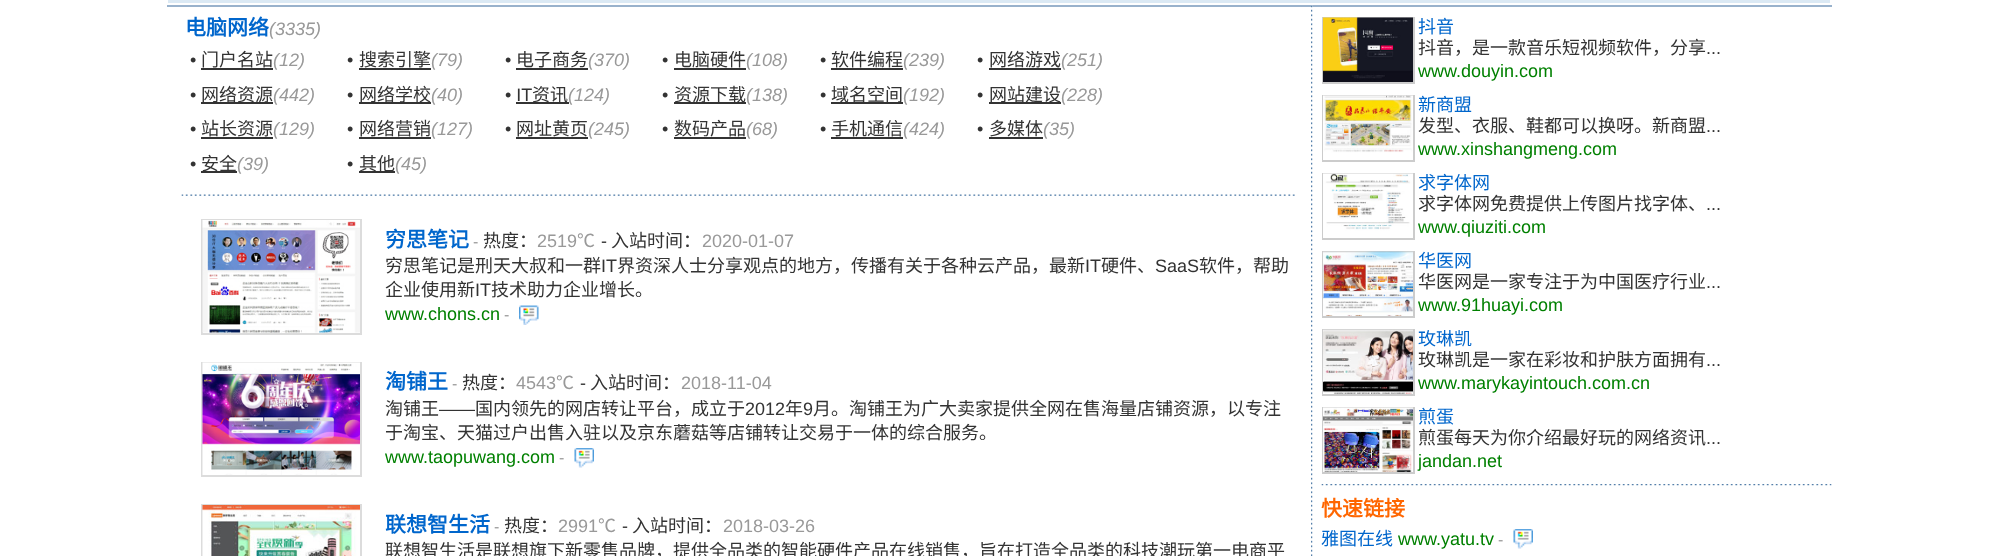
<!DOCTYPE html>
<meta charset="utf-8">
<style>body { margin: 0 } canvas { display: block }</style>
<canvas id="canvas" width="1996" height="556"></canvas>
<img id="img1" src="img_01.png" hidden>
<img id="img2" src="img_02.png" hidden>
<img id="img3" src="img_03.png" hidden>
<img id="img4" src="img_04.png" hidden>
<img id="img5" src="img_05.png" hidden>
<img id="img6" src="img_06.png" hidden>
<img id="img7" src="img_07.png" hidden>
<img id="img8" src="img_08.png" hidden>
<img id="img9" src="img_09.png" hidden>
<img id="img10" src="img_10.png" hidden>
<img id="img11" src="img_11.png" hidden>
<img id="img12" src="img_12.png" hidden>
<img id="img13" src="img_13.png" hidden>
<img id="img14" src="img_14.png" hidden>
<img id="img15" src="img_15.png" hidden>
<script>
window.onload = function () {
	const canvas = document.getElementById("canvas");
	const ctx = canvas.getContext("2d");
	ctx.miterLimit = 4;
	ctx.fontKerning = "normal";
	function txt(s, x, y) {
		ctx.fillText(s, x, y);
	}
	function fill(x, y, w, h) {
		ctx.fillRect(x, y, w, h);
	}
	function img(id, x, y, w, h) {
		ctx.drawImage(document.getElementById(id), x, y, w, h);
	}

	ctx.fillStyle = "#FFFFFF";
	fill(0, 0, 1996, 556);
	ctx.fillStyle = "#99B2CC";
	fill(167, 5, 1665, 2);
	ctx.fillStyle = "#DBE9F4";
	fill(168, 0, 1662, 3);
	ctx.fillStyle = "#333333";
	fill(201, 68, 72, 2);
	fill(359, 68, 72, 2);
	fill(516, 68, 72, 2);
	fill(674, 68, 72, 2);
	fill(831, 68, 72, 2);
	fill(989, 68, 72, 2);
	fill(201, 102, 72, 2);
	fill(359, 102, 72, 2);
	fill(516, 102, 53, 2);
	fill(674, 102, 72, 2);
	fill(831, 102, 72, 2);
	fill(989, 102, 72, 2);
	fill(201, 137, 72, 2);
	fill(359, 137, 72, 2);
	fill(516, 137, 72, 2);
	fill(674, 137, 72, 2);
	fill(831, 137, 72, 2);
	fill(989, 137, 54, 2);
	fill(201, 171, 36, 2);
	fill(359, 171, 36, 2);
	img("img1", 181, 194, 1114, 2);
	ctx.strokeStyle = "#DCDCDC";
	ctx.lineWidth = 2;
	ctx.strokeRect(202, 220, 159, 114);
	img("img2", 202, 220, 158, 113);
	img("img3", 519, 305, 20, 20);
	ctx.strokeRect(202, 363, 159, 113);
	img("img4", 202, 362, 158, 113);
	img("img5", 574, 448, 20, 20);
	ctx.strokeRect(202, 505, 159, 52);
	img("img6", 202, 505, 158, 51);
	img("img7", 1311, 5, 2, 551);
	ctx.strokeStyle = "#CCCCCC";
	ctx.strokeRect(1323, 18, 91, 65);
	img("img8", 1323, 17, 90, 65);
	ctx.strokeRect(1323, 96, 91, 65);
	img("img9", 1323, 95, 90, 65);
	ctx.strokeRect(1323, 174, 91, 65);
	img("img10", 1323, 173, 90, 65);
	ctx.strokeRect(1323, 252, 91, 65);
	img("img11", 1323, 251, 90, 65);
	ctx.strokeRect(1323, 330, 91, 65);
	img("img12", 1323, 329, 90, 65);
	ctx.strokeRect(1323, 408, 91, 65);
	img("img13", 1323, 407, 90, 65);
	img("img14", 1321, 484, 511, 2);
	img("img15", 1513, 529, 20, 20);
	ctx.font = "bold 21px Noto Sans CJK SC";
	ctx.fillStyle = "#0066CC";
	txt("电脑网络", 185, 35);
	ctx.font = "italic 18px Liberation Sans";
	ctx.fillStyle = "#999999";
	txt("(3335)", 269, 35);
	ctx.font = "18px Liberation Sans";
	ctx.fillStyle = "#333333";
	txt("•", 190, 66);
	ctx.font = "18px Noto Sans CJK SC";
	txt("门户名站", 201, 66);
	ctx.font = "italic 18px Liberation Sans";
	ctx.fillStyle = "#999999";
	txt("(12)", 273, 66);
	ctx.font = "18px Liberation Sans";
	ctx.fillStyle = "#333333";
	txt("•", 347, 66);
	ctx.font = "18px Noto Sans CJK SC";
	txt("搜索引擎", 359, 66);
	ctx.font = "italic 18px Liberation Sans";
	ctx.fillStyle = "#999999";
	txt("(79)", 431, 66);
	ctx.font = "18px Liberation Sans";
	ctx.fillStyle = "#333333";
	txt("•", 505, 66);
	ctx.font = "18px Noto Sans CJK SC";
	txt("电子商务", 516, 66);
	ctx.font = "italic 18px Liberation Sans";
	ctx.fillStyle = "#999999";
	txt("(370)", 588, 66);
	ctx.font = "18px Liberation Sans";
	ctx.fillStyle = "#333333";
	txt("•", 662, 66);
	ctx.font = "18px Noto Sans CJK SC";
	txt("电脑硬件", 674, 66);
	ctx.font = "italic 18px Liberation Sans";
	ctx.fillStyle = "#999999";
	txt("(108)", 746, 66);
	ctx.font = "18px Liberation Sans";
	ctx.fillStyle = "#333333";
	txt("•", 820, 66);
	ctx.font = "18px Noto Sans CJK SC";
	txt("软件编程", 831, 66);
	ctx.font = "italic 18px Liberation Sans";
	ctx.fillStyle = "#999999";
	txt("(239)", 903, 66);
	ctx.font = "18px Liberation Sans";
	ctx.fillStyle = "#333333";
	txt("•", 977, 66);
	ctx.font = "18px Noto Sans CJK SC";
	txt("网络游戏", 989, 66);
	ctx.font = "italic 18px Liberation Sans";
	ctx.fillStyle = "#999999";
	txt("(251)", 1061, 66);
	ctx.font = "18px Liberation Sans";
	ctx.fillStyle = "#333333";
	txt("•", 190, 101);
	ctx.font = "18px Noto Sans CJK SC";
	txt("网络资源", 201, 101);
	ctx.font = "italic 18px Liberation Sans";
	ctx.fillStyle = "#999999";
	txt("(442)", 273, 101);
	ctx.font = "18px Liberation Sans";
	ctx.fillStyle = "#333333";
	txt("•", 347, 101);
	ctx.font = "18px Noto Sans CJK SC";
	txt("网络学校", 359, 101);
	ctx.font = "italic 18px Liberation Sans";
	ctx.fillStyle = "#999999";
	txt("(40)", 431, 101);
	ctx.font = "18px Liberation Sans";
	ctx.fillStyle = "#333333";
	txt("• IT", 505, 101);
	ctx.font = "18px Noto Sans CJK SC";
	txt("资讯", 532, 101);
	ctx.font = "italic 18px Liberation Sans";
	ctx.fillStyle = "#999999";
	txt("(124)", 568, 101);
	ctx.font = "18px Liberation Sans";
	ctx.fillStyle = "#333333";
	txt("•", 662, 101);
	ctx.font = "18px Noto Sans CJK SC";
	txt("资源下载", 674, 101);
	ctx.font = "italic 18px Liberation Sans";
	ctx.fillStyle = "#999999";
	txt("(138)", 746, 101);
	ctx.font = "18px Liberation Sans";
	ctx.fillStyle = "#333333";
	txt("•", 820, 101);
	ctx.font = "18px Noto Sans CJK SC";
	txt("域名空间", 831, 101);
	ctx.font = "italic 18px Liberation Sans";
	ctx.fillStyle = "#999999";
	txt("(192)", 903, 101);
	ctx.font = "18px Liberation Sans";
	ctx.fillStyle = "#333333";
	txt("•", 977, 101);
	ctx.font = "18px Noto Sans CJK SC";
	txt("网站建设", 989, 101);
	ctx.font = "italic 18px Liberation Sans";
	ctx.fillStyle = "#999999";
	txt("(228)", 1061, 101);
	ctx.font = "18px Liberation Sans";
	ctx.fillStyle = "#333333";
	txt("•", 190, 135);
	ctx.font = "18px Noto Sans CJK SC";
	txt("站长资源", 201, 135);
	ctx.font = "italic 18px Liberation Sans";
	ctx.fillStyle = "#999999";
	txt("(129)", 273, 135);
	ctx.font = "18px Liberation Sans";
	ctx.fillStyle = "#333333";
	txt("•", 347, 135);
	ctx.font = "18px Noto Sans CJK SC";
	txt("网络营销", 359, 135);
	ctx.font = "italic 18px Liberation Sans";
	ctx.fillStyle = "#999999";
	txt("(127)", 431, 135);
	ctx.font = "18px Liberation Sans";
	ctx.fillStyle = "#333333";
	txt("•", 505, 135);
	ctx.font = "18px Noto Sans CJK SC";
	txt("网址黄页", 516, 135);
	ctx.font = "italic 18px Liberation Sans";
	ctx.fillStyle = "#999999";
	txt("(245)", 588, 135);
	ctx.font = "18px Liberation Sans";
	ctx.fillStyle = "#333333";
	txt("•", 662, 135);
	ctx.font = "18px Noto Sans CJK SC";
	txt("数码产品", 674, 135);
	ctx.font = "italic 18px Liberation Sans";
	ctx.fillStyle = "#999999";
	txt("(68)", 746, 135);
	ctx.font = "18px Liberation Sans";
	ctx.fillStyle = "#333333";
	txt("•", 820, 135);
	ctx.font = "18px Noto Sans CJK SC";
	txt("手机通信", 831, 135);
	ctx.font = "italic 18px Liberation Sans";
	ctx.fillStyle = "#999999";
	txt("(424)", 903, 135);
	ctx.font = "18px Liberation Sans";
	ctx.fillStyle = "#333333";
	txt("•", 977, 135);
	ctx.font = "18px Noto Sans CJK SC";
	txt("多媒体", 989, 135);
	ctx.font = "italic 18px Liberation Sans";
	ctx.fillStyle = "#999999";
	txt("(35)", 1043, 135);
	ctx.font = "18px Liberation Sans";
	ctx.fillStyle = "#333333";
	txt("•", 190, 170);
	ctx.font = "18px Noto Sans CJK SC";
	txt("安全", 201, 170);
	ctx.font = "italic 18px Liberation Sans";
	ctx.fillStyle = "#999999";
	txt("(39)", 237, 170);
	ctx.font = "18px Liberation Sans";
	ctx.fillStyle = "#333333";
	txt("•", 347, 170);
	ctx.font = "18px Noto Sans CJK SC";
	txt("其他", 359, 170);
	ctx.font = "italic 18px Liberation Sans";
	ctx.fillStyle = "#999999";
	txt("(45)", 395, 170);
	ctx.font = "bold 21px Noto Sans CJK SC";
	ctx.fillStyle = "#0066CC";
	txt("穷思笔记", 385, 247);
	ctx.font = "16px Liberation Sans";
	ctx.fillStyle = "#999999";
	txt("-", 473, 247);
	ctx.font = "18px Noto Sans CJK SC";
	ctx.fillStyle = "#333333";
	txt("热度：", 483, 247);
	ctx.font = "18px Liberation Sans";
	ctx.fillStyle = "#999999";
	txt("2519", 537, 247);
	ctx.font = "18px Noto Sans CJK SC";
	txt("℃", 577, 247);
	ctx.font = "18px Liberation Sans";
	ctx.fillStyle = "#333333";
	txt("-", 601, 247);
	ctx.font = "18px Noto Sans CJK SC";
	txt("入站时间：", 611, 247);
	ctx.font = "18px Liberation Sans";
	ctx.fillStyle = "#999999";
	txt("2020-01-07", 702, 247);
	ctx.font = "18px Noto Sans CJK SC";
	ctx.fillStyle = "#333333";
	txt("穷思笔记是刑天大叔和一群", 385, 272);
	ctx.font = "18px Liberation Sans";
	txt("IT", 601, 272);
	ctx.font = "18px Noto Sans CJK SC";
	txt("界资深人士分享观点的地方，传播有关于各种云产品，最新", 617, 272);
	ctx.font = "18px Liberation Sans";
	txt("IT", 1085, 272);
	ctx.font = "18px Noto Sans CJK SC";
	txt("硬件、", 1101, 272);
	ctx.font = "18px Liberation Sans";
	txt("SaaS", 1155, 272);
	ctx.font = "18px Noto Sans CJK SC";
	txt("软件，帮助", 1199, 272);
	txt("企业使用新", 385, 296);
	ctx.font = "18px Liberation Sans";
	txt("IT", 475, 296);
	ctx.font = "18px Noto Sans CJK SC";
	txt("技术助力企业增长。", 491, 296);
	ctx.font = "18px Liberation Sans";
	ctx.fillStyle = "#008000";
	txt("www.chons.cn", 385, 320);
	ctx.font = "16px Liberation Sans";
	ctx.fillStyle = "#999999";
	txt("-", 504, 320);
	ctx.font = "bold 21px Noto Sans CJK SC";
	ctx.fillStyle = "#0066CC";
	txt("淘铺王", 385, 389);
	ctx.font = "16px Liberation Sans";
	ctx.fillStyle = "#999999";
	txt("-", 452, 389);
	ctx.font = "18px Noto Sans CJK SC";
	ctx.fillStyle = "#333333";
	txt("热度：", 462, 389);
	ctx.font = "18px Liberation Sans";
	ctx.fillStyle = "#999999";
	txt("4543", 516, 389);
	ctx.font = "18px Noto Sans CJK SC";
	txt("℃", 556, 389);
	ctx.font = "18px Liberation Sans";
	ctx.fillStyle = "#333333";
	txt("-", 580, 389);
	ctx.font = "18px Noto Sans CJK SC";
	txt("入站时间：", 590, 389);
	ctx.font = "18px Liberation Sans";
	ctx.fillStyle = "#999999";
	txt("2018-11-04", 681, 389);
	ctx.font = "18px Noto Sans CJK SC";
	ctx.fillStyle = "#333333";
	txt("淘铺王", 385, 415);
	ctx.font = "18px Liberation Sans";
	txt("——", 439, 415);
	ctx.font = "18px Noto Sans CJK SC";
	txt("国内领先的网店转让平台，成立于", 475, 415);
	ctx.font = "18px Liberation Sans";
	txt("2012", 745, 415);
	ctx.font = "18px Noto Sans CJK SC";
	txt("年", 785, 415);
	ctx.font = "18px Liberation Sans";
	txt("9", 803, 415);
	ctx.font = "18px Noto Sans CJK SC";
	txt("月。淘铺王为广大卖家提供全网在售海量店铺资源，以专注", 813, 415);
	txt("于淘宝、天猫过户出售入驻以及京东蘑菇等店铺转让交易于一体的综合服务。", 385, 439);
	ctx.font = "18px Liberation Sans";
	ctx.fillStyle = "#008000";
	txt("www.taopuwang.com", 385, 463);
	ctx.font = "16px Liberation Sans";
	ctx.fillStyle = "#999999";
	txt("-", 559, 463);
	ctx.font = "bold 21px Noto Sans CJK SC";
	ctx.fillStyle = "#0066CC";
	txt("联想智生活", 385, 532);
	ctx.font = "16px Liberation Sans";
	ctx.fillStyle = "#999999";
	txt("-", 494, 532);
	ctx.font = "18px Noto Sans CJK SC";
	ctx.fillStyle = "#333333";
	txt("热度：", 504, 532);
	ctx.font = "18px Liberation Sans";
	ctx.fillStyle = "#999999";
	txt("2991", 558, 532);
	ctx.font = "18px Noto Sans CJK SC";
	txt("℃", 598, 532);
	ctx.font = "18px Liberation Sans";
	ctx.fillStyle = "#333333";
	txt("-", 622, 532);
	ctx.font = "18px Noto Sans CJK SC";
	txt("入站时间：", 632, 532);
	ctx.font = "18px Liberation Sans";
	ctx.fillStyle = "#999999";
	txt("2018-03-26", 723, 532);
	ctx.font = "18px Noto Sans CJK SC";
	ctx.fillStyle = "#333333";
	txt("联想智生活是联想旗下新零售品牌，提供全品类的智能硬件产品在线销售，旨在打造全品类的科技潮玩第一电商平", 385, 557);
	ctx.fillStyle = "#0066CC";
	txt("抖音", 1418, 33);
	ctx.fillStyle = "#333333";
	txt("抖音，是一款音乐短视频软件，分享", 1418, 54);
	ctx.font = "18px Liberation Sans";
	txt("...", 1706, 54);
	ctx.fillStyle = "#008000";
	txt("www.douyin.com", 1418, 77);
	ctx.font = "18px Noto Sans CJK SC";
	ctx.fillStyle = "#0066CC";
	txt("新商盟", 1418, 111);
	ctx.fillStyle = "#333333";
	txt("发型、衣服、鞋都可以换呀。新商盟", 1418, 132);
	ctx.font = "18px Liberation Sans";
	txt("...", 1706, 132);
	ctx.fillStyle = "#008000";
	txt("www.xinshangmeng.com", 1418, 155);
	ctx.font = "18px Noto Sans CJK SC";
	ctx.fillStyle = "#0066CC";
	txt("求字体网", 1418, 189);
	ctx.fillStyle = "#333333";
	txt("求字体网免费提供上传图片找字体、", 1418, 210);
	ctx.font = "18px Liberation Sans";
	txt("...", 1706, 210);
	ctx.fillStyle = "#008000";
	txt("www.qiuziti.com", 1418, 233);
	ctx.font = "18px Noto Sans CJK SC";
	ctx.fillStyle = "#0066CC";
	txt("华医网", 1418, 267);
	ctx.fillStyle = "#333333";
	txt("华医网是一家专注于为中国医疗行业", 1418, 288);
	ctx.font = "18px Liberation Sans";
	txt("...", 1706, 288);
	ctx.fillStyle = "#008000";
	txt("www.91huayi.com", 1418, 311);
	ctx.font = "18px Noto Sans CJK SC";
	ctx.fillStyle = "#0066CC";
	txt("玫琳凯", 1418, 345);
	ctx.fillStyle = "#333333";
	txt("玫琳凯是一家在彩妆和护肤方面拥有", 1418, 366);
	ctx.font = "18px Liberation Sans";
	txt("...", 1706, 366);
	ctx.fillStyle = "#008000";
	txt("www.marykayintouch.com.cn", 1418, 389);
	ctx.font = "18px Noto Sans CJK SC";
	ctx.fillStyle = "#0066CC";
	txt("煎蛋", 1418, 423);
	ctx.fillStyle = "#333333";
	txt("煎蛋每天为你介绍最好玩的网络资讯", 1418, 444);
	ctx.font = "18px Liberation Sans";
	txt("...", 1706, 444);
	ctx.fillStyle = "#008000";
	txt("jandan.net", 1418, 467);
	ctx.font = "bold 21px Noto Sans CJK SC";
	ctx.fillStyle = "#FF6600";
	txt("快速链接", 1321, 516);
	ctx.font = "18px Noto Sans CJK SC";
	ctx.fillStyle = "#0066CC";
	txt("雅图在线", 1321, 545);
	ctx.font = "18px Liberation Sans";
	ctx.fillStyle = "#008000";
	txt("www.yatu.tv", 1398, 545);
	ctx.font = "16px Liberation Sans";
	ctx.fillStyle = "#999999";
	txt("-", 1498, 545);
};
</script>
